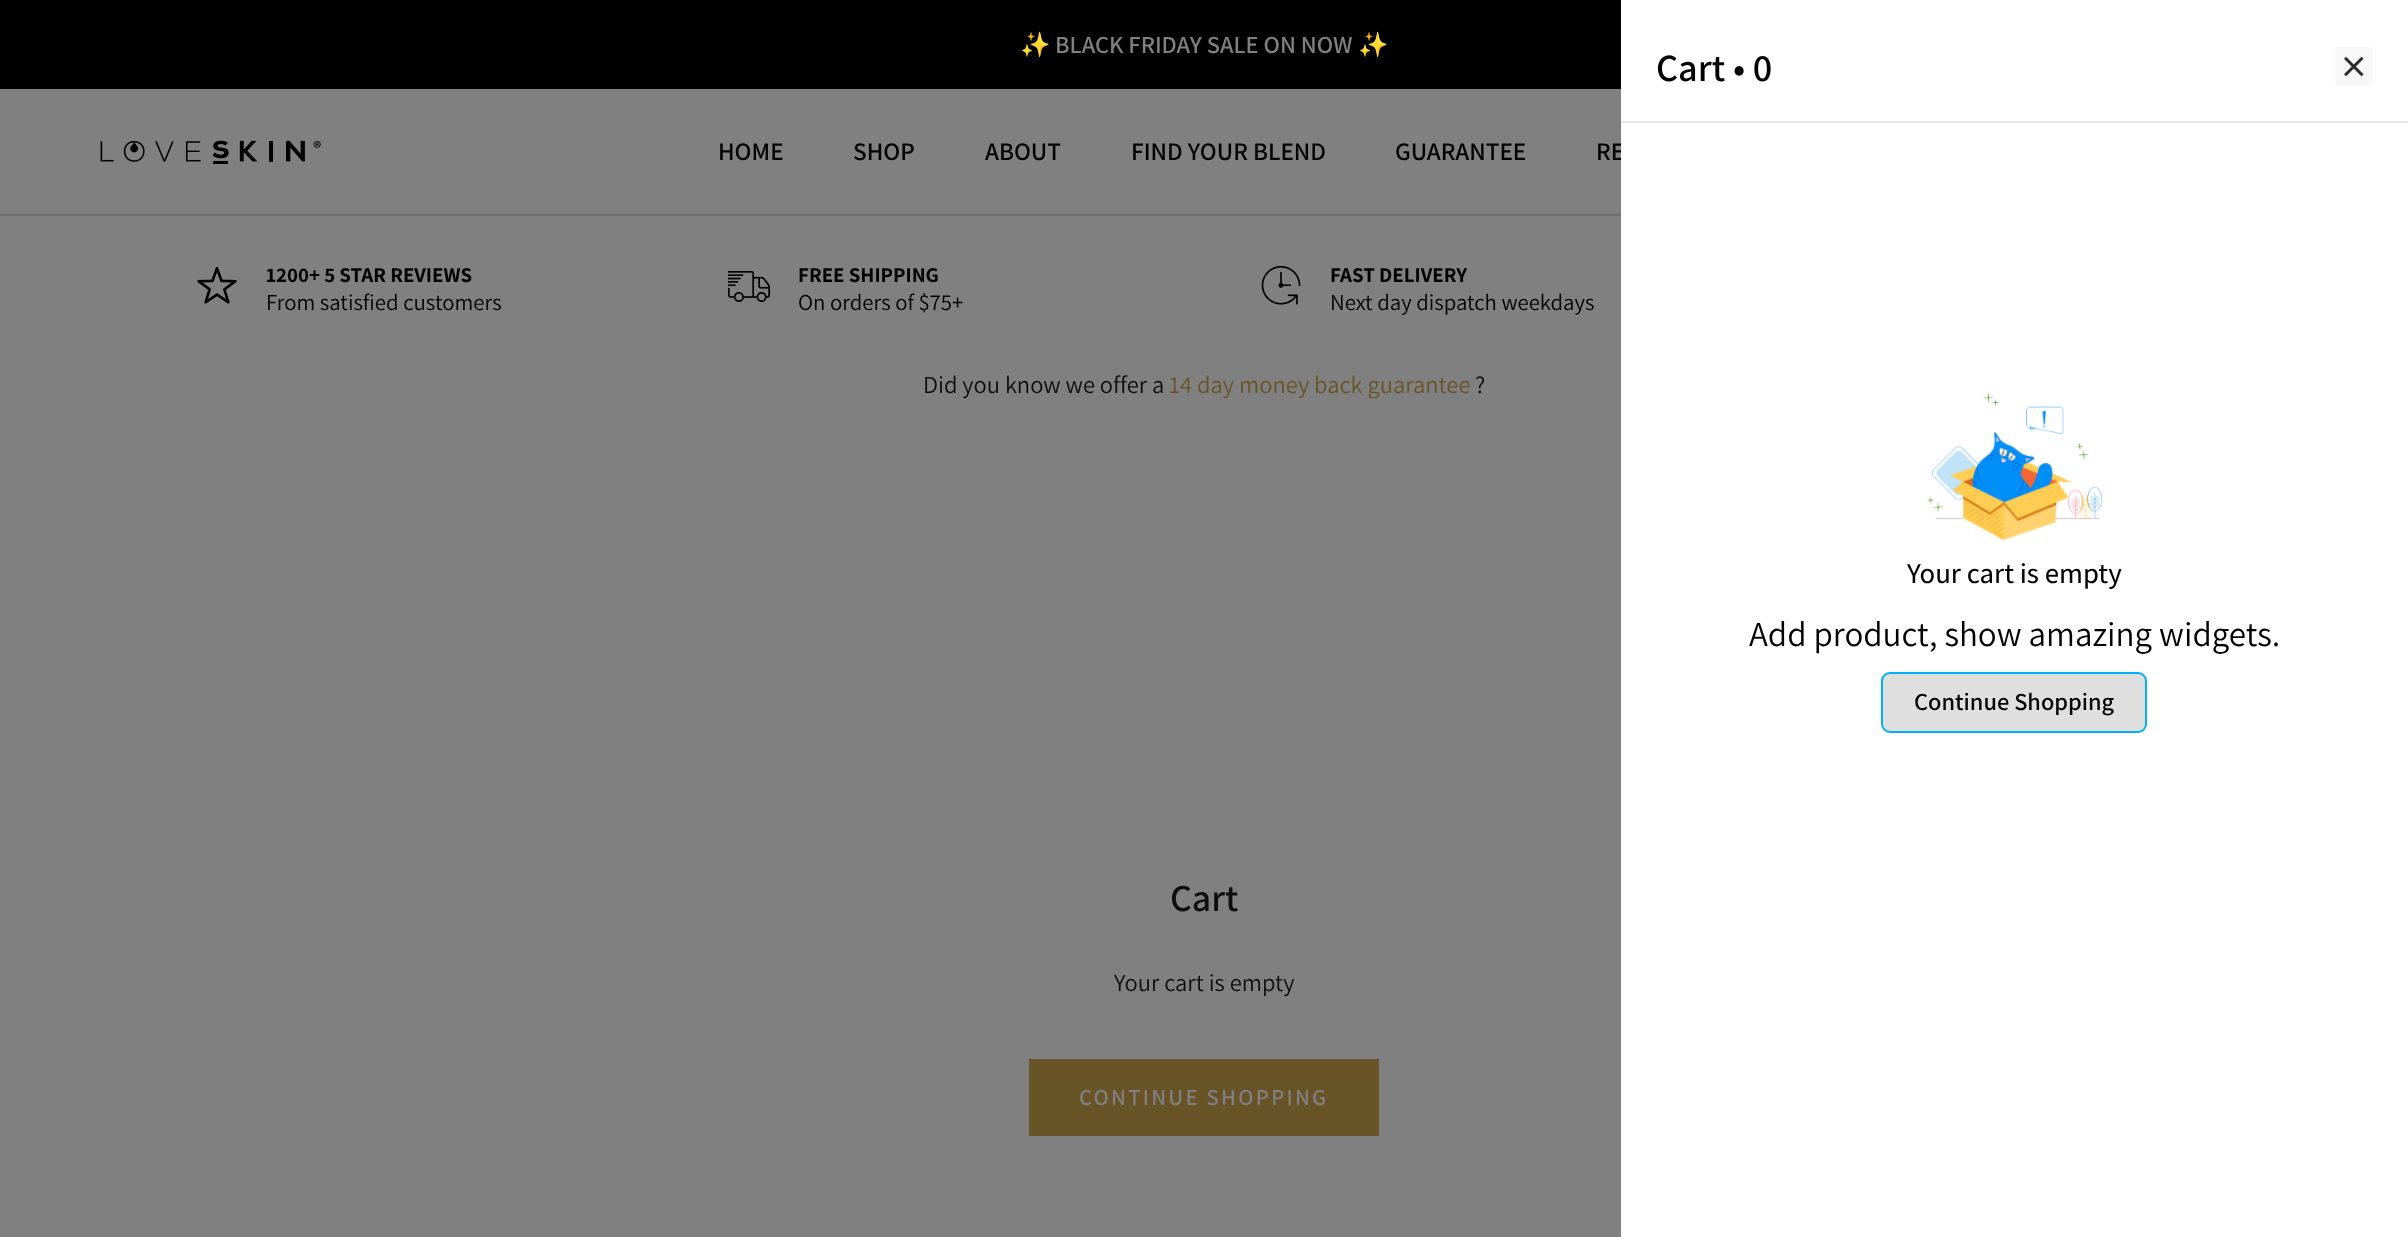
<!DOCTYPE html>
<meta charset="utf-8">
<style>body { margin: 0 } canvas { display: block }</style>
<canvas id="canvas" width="2408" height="1237"></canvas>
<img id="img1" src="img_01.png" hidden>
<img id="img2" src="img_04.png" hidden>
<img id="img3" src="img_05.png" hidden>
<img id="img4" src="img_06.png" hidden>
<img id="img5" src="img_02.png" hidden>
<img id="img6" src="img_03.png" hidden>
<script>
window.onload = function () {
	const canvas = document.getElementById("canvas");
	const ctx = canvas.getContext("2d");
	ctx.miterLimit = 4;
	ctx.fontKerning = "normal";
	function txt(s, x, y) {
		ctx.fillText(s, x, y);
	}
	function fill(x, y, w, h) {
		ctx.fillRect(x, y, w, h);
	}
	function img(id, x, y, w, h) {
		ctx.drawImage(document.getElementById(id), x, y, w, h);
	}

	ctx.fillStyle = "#808080";
	fill(0, 0, 2408, 1237);
	ctx.fillStyle = "#000000";
	fill(0, 0, 1621, 89);
	img("img1", 100, 140, 221, 24);
	ctx.fillStyle = "#6F6F6F";
	fill(0, 214, 1621, 2);
	img("img2", 197, 266, 40, 38);
	img("img3", 728, 271, 42, 32);
	img("img4", 1261, 265, 40, 40);
	ctx.fillStyle = "#685427";
	ctx.beginPath();
	ctx.rect(1030, 1060, 348, 75);
	ctx.fill();
	ctx.strokeStyle = "#685427";
	ctx.lineWidth = 2;
	ctx.stroke();
	ctx.font = "bold 24.5px Noto Color Emoji";
	ctx.fillStyle = "#808080";
	txt("✨", 1020, 53);
	ctx.font = "600 24.5px Assistant";
	txt("BLACK FRIDAY SALE ON NOW", 1055, 53);
	ctx.font = "bold 24.5px Noto Color Emoji";
	txt("✨", 1358, 53);
	ctx.font = "600 25.25px Assistant";
	ctx.fillStyle = "#000000";
	txt("HOME", 718, 160);
	txt("SHOP", 853, 160);
	txt("ABOUT", 985, 160);
	txt("FIND YOUR BLEND", 1131, 160);
	txt("GUARANTEE", 1395, 160);
	txt("RE", 1596, 160);
	ctx.fillStyle = "#FFFFFF";
	fill(1621, 0, 787, 1237);
	ctx.fillStyle = "#E8E8E8";
	fill(1621, 121, 787, 2);
	ctx.font = "600 38.5px Assistant";
	ctx.fillStyle = "#000000";
	txt("Cart • 0", 1656, 81);
	ctx.fillStyle = "#F8F8F8";
	fill(2335, 47, 38, 39);
	img("img5", 2344, 56, 20, 21);
	img("img6", 1927, 392, 175, 149);
	ctx.font = "500 28.75px Assistant";
	ctx.fillStyle = "#000000";
	txt("Your cart is empty", 1907, 583);
	ctx.font = "35px Assistant";
	txt("Add product, show amazing widgets.", 1749, 646);
	ctx.fillStyle = "#DFDFDF";
	ctx.beginPath();
	ctx.roundRect(1882, 673, 264, 59, 8);
	ctx.fill();
	ctx.strokeStyle = "#00AEF9";
	ctx.stroke();
	ctx.font = "600 24.5px Assistant";
	ctx.fillStyle = "#000000";
	txt("Continue Shopping", 1914, 710);
	ctx.font = "bold 21px Assistant";
	txt("1200+ 5 STAR REVIEWS", 266, 282);
	ctx.font = "22.75px Assistant";
	txt("From satisfied customers", 266, 310);
	ctx.font = "bold 21px Assistant";
	txt("FREE SHIPPING", 798, 282);
	ctx.font = "22.75px Assistant";
	txt("On orders of $75+", 798, 310);
	ctx.font = "bold 21px Assistant";
	txt("FAST DELIVERY", 1330, 282);
	ctx.font = "22.75px Assistant";
	txt("Next day dispatch weekdays", 1330, 310);
	ctx.font = "24.5px Assistant";
	ctx.fillStyle = "#0E0E0E";
	txt("Did you know we offer a", 923, 393);
	ctx.fillStyle = "#685427";
	txt("14 day money back guarantee", 1169, 393);
	ctx.fillStyle = "#0E0E0E";
	txt("?", 1475, 393);
	ctx.font = "600 38px Assistant";
	txt("Cart", 1170, 911);
	ctx.font = "24.5px Assistant";
	txt("Your cart is empty", 1114, 991);
	ctx.letterSpacing = "2.25px";
	ctx.font = "600 22.75px Assistant";
	ctx.fillStyle = "#808080";
	txt("CONTINUE SHOPPING", 1079, 1105);
};
</script>
